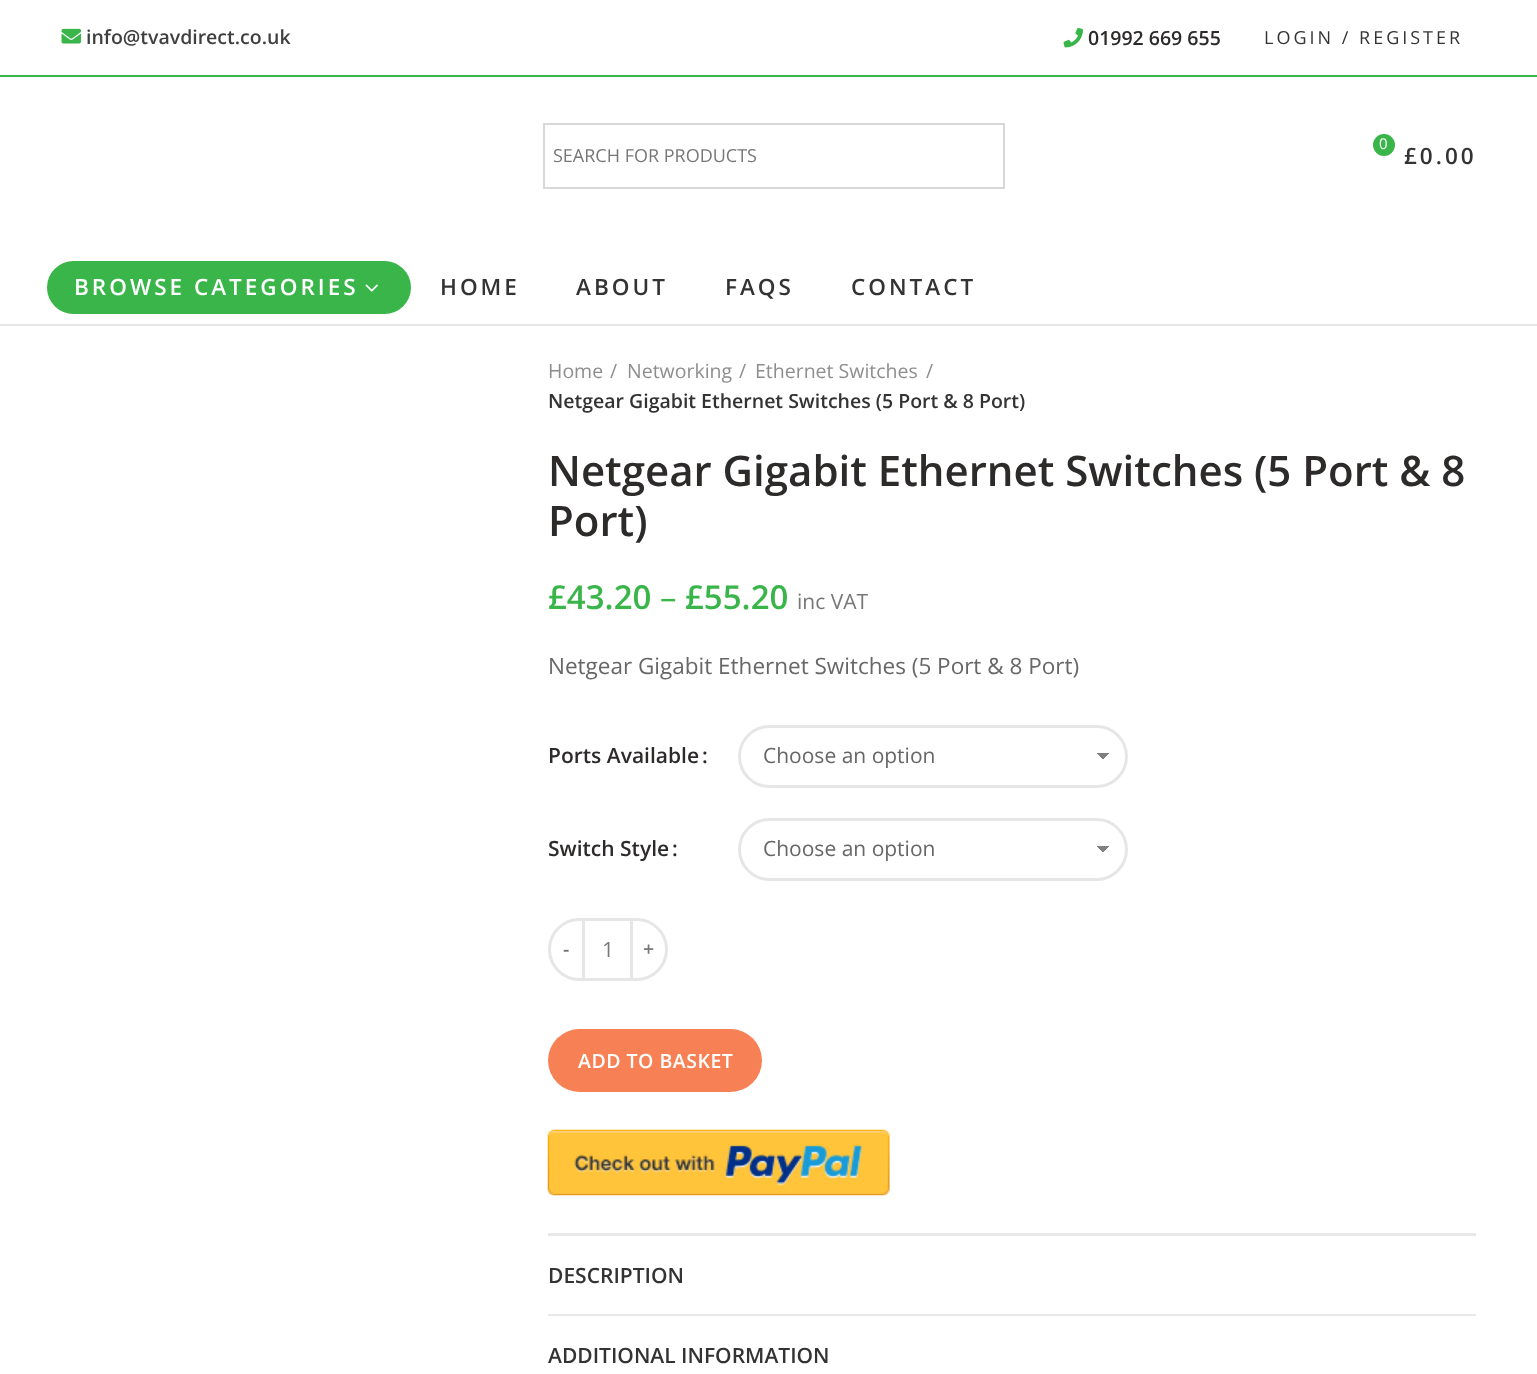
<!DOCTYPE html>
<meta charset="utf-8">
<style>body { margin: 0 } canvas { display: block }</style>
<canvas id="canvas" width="1537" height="1374"></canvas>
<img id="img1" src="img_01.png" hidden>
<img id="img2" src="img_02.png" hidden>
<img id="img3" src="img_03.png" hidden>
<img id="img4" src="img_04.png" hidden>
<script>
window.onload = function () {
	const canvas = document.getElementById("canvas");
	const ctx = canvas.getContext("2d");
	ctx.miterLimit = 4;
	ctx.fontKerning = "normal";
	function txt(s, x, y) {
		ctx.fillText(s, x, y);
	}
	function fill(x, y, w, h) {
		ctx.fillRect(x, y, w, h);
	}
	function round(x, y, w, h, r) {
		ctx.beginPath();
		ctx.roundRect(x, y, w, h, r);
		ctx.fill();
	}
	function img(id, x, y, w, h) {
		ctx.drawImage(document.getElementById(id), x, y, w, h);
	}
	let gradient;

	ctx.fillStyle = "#FFFFFF";
	fill(0, 0, 1537, 1374);
	ctx.fillStyle = "#39B54A";
	fill(0, 75, 1537, 2);
	img("img1", 61, 28, 20, 16);
	img("img2", 1063, 28, 20, 20);
	ctx.strokeStyle = "#D8D8D8";
	ctx.lineWidth = 2;
	ctx.strokeRect(544, 124, 460, 64);
	ctx.beginPath();
	ctx.arc(1384, 145, 11, 0, Math.PI * 2);
	ctx.fill();
	ctx.fillStyle = "#E6E6E6";
	fill(0, 324, 1537, 2);
	ctx.fillStyle = "#39B54A";
	round(47, 261, 364, 53, 26.5);
	img("img3", 365, 284, 13, 8);
	gradient = ctx.createLinearGradient(1103, 752, 1110, 760);
	gradient.addColorStop(0.5, "#808080");
	gradient.addColorStop(0.5, "#FFFFFF");
	ctx.fillStyle = gradient;
	fill(1103, 753, 6, 8);
	gradient = ctx.createLinearGradient(1095, 760, 1103, 752);
	gradient.addColorStop(0.5, "#FFFFFF");
	gradient.addColorStop(0.5, "#808080");
	ctx.fillStyle = gradient;
	fill(1095, 753, 8, 7);
	ctx.beginPath();
	ctx.roundRect(739.5, 726.5, 387, 60, 30);
	ctx.strokeStyle = "#E6E6E6";
	ctx.lineWidth = 3;
	ctx.stroke();
	gradient = ctx.createLinearGradient(1103, 845, 1110, 853);
	gradient.addColorStop(0.5, "#808080");
	gradient.addColorStop(0.5, "#FFFFFF");
	ctx.fillStyle = gradient;
	fill(1103, 846, 6, 8);
	gradient = ctx.createLinearGradient(1095, 853, 1103, 845);
	gradient.addColorStop(0.5, "#FFFFFF");
	gradient.addColorStop(0.5, "#808080");
	ctx.fillStyle = gradient;
	fill(1095, 846, 8, 7);
	ctx.beginPath();
	ctx.roundRect(739.5, 819.5, 387, 60, 30);
	ctx.stroke();
	ctx.beginPath();
	ctx.roundRect(549.5, 919.5, 34, 60, [30, 0, 0, 30]);
	ctx.stroke();
	ctx.fillStyle = "#E6E6E6";
	fill(585, 918, 45, 3);
	fill(585, 978, 45, 3);
	ctx.beginPath();
	ctx.roundRect(631.5, 919.5, 35, 60, [0, 30, 30, 0]);
	ctx.stroke();
	ctx.fillStyle = "#F78154";
	round(548, 1029, 214, 63, 31.5);
	img("img4", 547, 1129, 343, 67);
	ctx.fillStyle = "#E8E8E8";
	fill(548, 1233, 928, 3);
	fill(548, 1314, 928, 2);
	ctx.font = "600 19.5px Open Sans";
	ctx.fillStyle = "#3F3F3F";
	txt("info@tvavdirect.co.uk", 86, 44);
	ctx.fillStyle = "#2D2A2A";
	txt("01992 669 655", 1088, 45);
	ctx.letterSpacing = "3px";
	ctx.font = "18px Open Sans";
	ctx.fillStyle = "#333333";
	txt("LOGIN / REGISTER", 1264, 44);
	ctx.letterSpacing = "0px";
	ctx.fillStyle = "#777777";
	txt("SEARCH FOR PRODUCTS", 553, 162);
	ctx.font = "15px Open Sans";
	ctx.fillStyle = "#FFFFFF";
	txt("0", 1379, 149);
	ctx.letterSpacing = "3px";
	ctx.font = "600 22.5px Open Sans";
	ctx.fillStyle = "#333333";
	txt("£0.00", 1404, 164);
	ctx.fillStyle = "#FFFFFF";
	txt("BROWSE CATEGORIES", 74, 295);
	ctx.fillStyle = "#333333";
	txt("HOME", 440, 295);
	txt("ABOUT", 576, 295);
	txt("FAQS", 725, 295);
	txt("CONTACT", 851, 295);
	ctx.letterSpacing = "0px";
	ctx.font = "19.5px Open Sans";
	ctx.fillStyle = "#8E8E8E";
	txt("Home", 548, 378);
	txt("/", 610, 378);
	txt("Networking", 627, 378);
	txt("/", 739, 378);
	txt("Ethernet Switches", 755, 378);
	txt("/", 926, 378);
	ctx.font = "600 19.5px Open Sans";
	ctx.fillStyle = "#333333";
	txt("Netgear Gigabit Ethernet Switches (5 Port & 8 Port)", 548, 408);
	ctx.font = "600 42px Open Sans";
	ctx.fillStyle = "#2D2A2A";
	txt("Netgear Gigabit Ethernet Switches (5 Port & 8", 548, 486);
	txt("Port)", 548, 536);
	ctx.font = "600 33px Open Sans";
	ctx.fillStyle = "#39B54A";
	txt("£43.20", 548, 609);
	ctx.font = "33px Open Sans";
	txt("–", 660, 609);
	ctx.font = "600 33px Open Sans";
	txt("£55.20", 685, 609);
	ctx.font = "21px Open Sans";
	ctx.fillStyle = "#777777";
	txt("inc VAT", 797, 609);
	ctx.font = "22.5px Open Sans";
	ctx.fillStyle = "#676767";
	txt("Netgear Gigabit Ethernet Switches (5 Port & 8 Port)", 548, 674);
	ctx.font = "600 21px Open Sans";
	ctx.fillStyle = "#2D2A2A";
	txt("Ports Available", 548, 763);
	txt(":", 702, 763);
	ctx.font = "21px Open Sans";
	ctx.fillStyle = "#676767";
	txt("Choose an option", 763, 763);
	ctx.font = "600 21px Open Sans";
	ctx.fillStyle = "#2D2A2A";
	txt("Switch Style", 548, 856);
	txt(":", 672, 856);
	ctx.font = "21px Open Sans";
	ctx.fillStyle = "#676767";
	txt("Choose an option", 763, 856);
	ctx.letterSpacing = "0.5px";
	ctx.font = "600 19.5px Open Sans";
	ctx.fillStyle = "#777777";
	txt("-", 563, 956);
	ctx.letterSpacing = "0px";
	ctx.font = "21px Open Sans";
	txt("1", 602, 957);
	ctx.letterSpacing = "0.5px";
	ctx.font = "600 19.5px Open Sans";
	txt("+", 643, 956);
	ctx.fillStyle = "#FFFFFF";
	txt("ADD TO BASKET", 578, 1068);
	ctx.letterSpacing = "0px";
	ctx.font = "600 21px Open Sans";
	ctx.fillStyle = "#333333";
	txt("DESCRIPTION", 548, 1283);
	txt("ADDITIONAL INFORMATION", 548, 1363);
};
</script>
